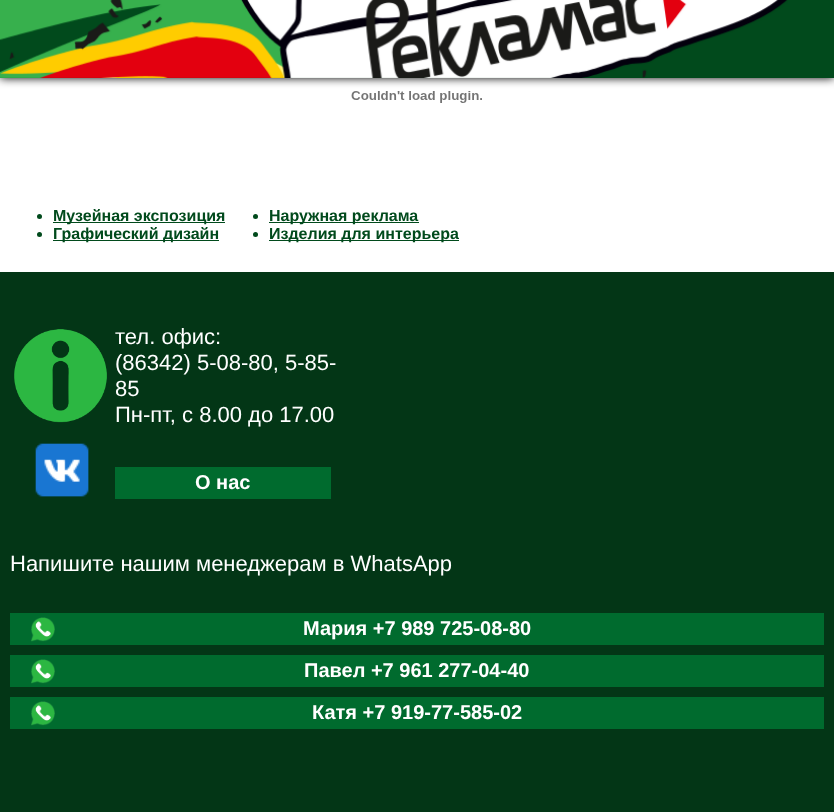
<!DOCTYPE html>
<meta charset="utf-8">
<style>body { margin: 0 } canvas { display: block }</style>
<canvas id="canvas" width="834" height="812"></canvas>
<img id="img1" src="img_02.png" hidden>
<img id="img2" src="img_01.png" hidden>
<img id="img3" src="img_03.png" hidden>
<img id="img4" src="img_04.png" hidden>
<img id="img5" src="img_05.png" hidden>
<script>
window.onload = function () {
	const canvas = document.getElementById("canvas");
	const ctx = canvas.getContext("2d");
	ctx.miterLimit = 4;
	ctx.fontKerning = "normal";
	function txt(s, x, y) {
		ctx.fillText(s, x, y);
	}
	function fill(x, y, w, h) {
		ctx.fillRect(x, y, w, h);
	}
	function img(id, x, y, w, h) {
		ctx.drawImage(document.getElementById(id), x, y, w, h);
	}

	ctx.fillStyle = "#FFFFFF";
	fill(0, 0, 834, 812);
	img("img1", 351, 91, 131, 12);
	ctx.fillStyle = "#000000";
	ctx.filter = "blur(5px)";
	ctx.beginPath();
	ctx.rect(0, 0, 834, 78);
	ctx.fill();
	ctx.filter = "none";
	ctx.fillStyle = "#014A1C";
	fill(0, 0, 834, 78);
	img("img2", 0, 0, 788, 78);
	ctx.beginPath();
	ctx.arc(39.5, 216.5, 2.5, 0, Math.PI * 2);
	ctx.fill();
	fill(53, 222, 172, 1);
	ctx.beginPath();
	ctx.arc(39.5, 234.5, 2.5, 0, Math.PI * 2);
	ctx.fill();
	fill(53, 240, 166, 1);
	ctx.beginPath();
	ctx.arc(255.5, 216.5, 2.5, 0, Math.PI * 2);
	ctx.fill();
	fill(269, 222, 150, 1);
	ctx.beginPath();
	ctx.arc(255.5, 234.5, 2.5, 0, Math.PI * 2);
	ctx.fill();
	fill(269, 240, 190, 1);
	ctx.fillStyle = "#033616";
	fill(0, 272, 834, 540);
	img("img3", 14, 329, 93, 94);
	img("img4", 35, 443, 54, 54);
	ctx.fillStyle = "#006B2E";
	fill(115, 467, 216, 32);
	fill(10, 613, 814, 32);
	img("img5", 31, 617, 24, 25);
	fill(10, 655, 814, 32);
	img("img5", 31, 659, 24, 25);
	fill(10, 697, 814, 32);
	img("img5", 31, 701, 24, 25);
	ctx.font = "bold 16px Liberation Sans";
	ctx.fillStyle = "#014A1C";
	txt("Музейная экспозиция", 53, 221);
	txt("Графический дизайн", 53, 239);
	txt("Наружная реклама", 269, 221);
	txt("Изделия для интерьера", 269, 239);
	ctx.font = "22px Liberation Sans";
	ctx.fillStyle = "#FFFFFF";
	txt("тел. офис:", 115, 344);
	txt("(86342) 5-08-80, 5-85-", 115, 370);
	txt("85", 115, 396);
	txt("Пн-пт, c 8.00 до 17.00", 115, 422);
	ctx.font = "bold 20px Liberation Sans";
	txt("О нас", 195, 489);
	ctx.font = "22px Liberation Sans";
	txt("Напишите нашим менеджерам в WhatsApp", 10, 571);
	ctx.font = "bold 20px Liberation Sans";
	txt("Мария +7 989 725-08-80", 303, 635);
	txt("Павел +7 961 277-04-40", 304, 677);
	txt("Катя +7 919-77-585-02", 312, 719);
};
</script>
